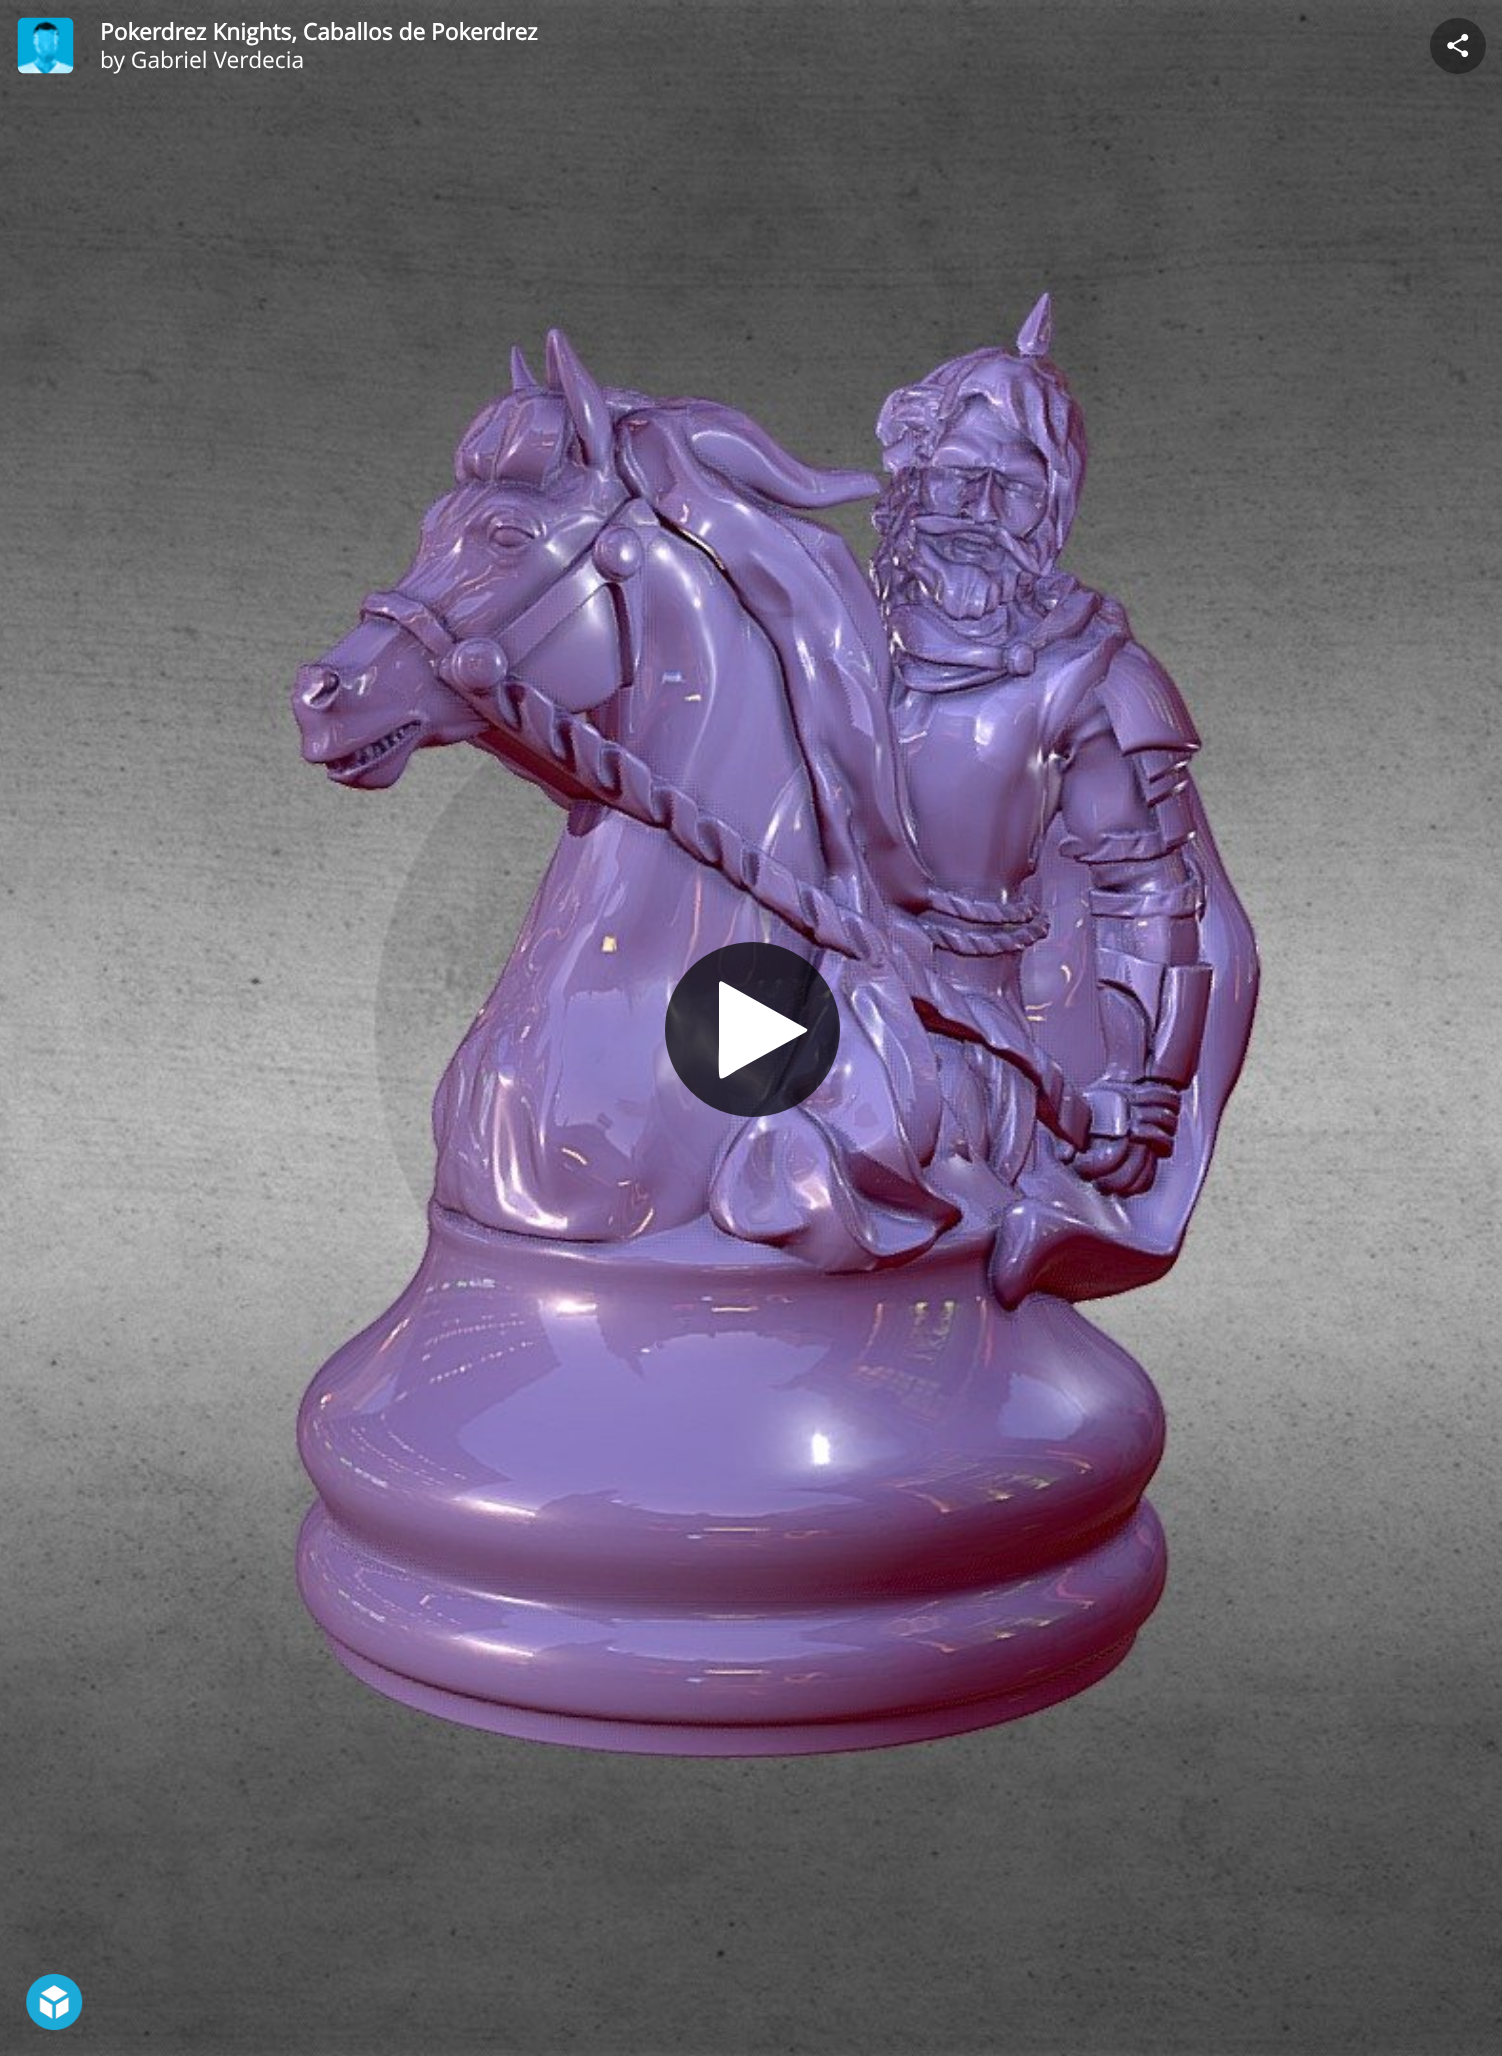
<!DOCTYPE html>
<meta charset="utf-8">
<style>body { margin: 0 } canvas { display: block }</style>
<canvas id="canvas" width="1502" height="2056"></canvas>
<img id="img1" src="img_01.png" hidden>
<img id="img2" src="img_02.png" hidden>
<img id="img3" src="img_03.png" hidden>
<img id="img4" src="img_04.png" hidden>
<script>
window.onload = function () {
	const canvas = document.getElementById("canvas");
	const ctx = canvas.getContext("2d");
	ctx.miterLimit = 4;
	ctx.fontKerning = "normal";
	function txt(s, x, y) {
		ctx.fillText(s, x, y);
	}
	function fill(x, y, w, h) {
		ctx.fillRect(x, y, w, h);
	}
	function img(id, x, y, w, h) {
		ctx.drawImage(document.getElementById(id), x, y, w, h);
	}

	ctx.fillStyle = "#FFFFFF";
	fill(0, 0, 1502, 2056);
	img("img1", 0, 0, 1502, 2056);
	ctx.fillStyle = "rgba(0, 0, 0, 0.7)";
	ctx.beginPath();
	ctx.arc(752.5, 1029.5, 87.5, 0, Math.PI * 2);
	ctx.fill();
	ctx.fillStyle = "#FFFFFF";
	ctx.beginPath();
	ctx.moveTo(806, 1032);
	ctx.lineTo(737, 1070);
	ctx.bezierCurveTo(735, 1071, 722, 1081, 720, 1078);
	ctx.bezierCurveTo(718, 1075, 719, 1048, 719, 1045);
	ctx.lineTo(719, 983);
	ctx.bezierCurveTo(720, 981, 721, 981, 723, 982);
	ctx.lineTo(807, 1029);
	ctx.bezierCurveTo(808, 1030, 807, 1031, 806, 1032);
	ctx.closePath();
	ctx.fill();
	img("img2", 26, 1974, 57, 56);
	img("img3", 17, 17, 57, 57);
	ctx.fillStyle = "rgba(0, 0, 0, 0.4)";
	ctx.beginPath();
	ctx.arc(1458, 46, 28, 0, Math.PI * 2);
	ctx.fill();
	img("img4", 1447, 33, 22, 25);
	ctx.font = "bold 22.75px Open Sans";
	ctx.fillStyle = "#FFFFFF";
	txt("Pokerdrez Knights, Caballos de Pokerdrez", 100, 40);
	ctx.font = "22.75px Open Sans";
	txt("by Gabriel Verdecia", 100, 68);
};
</script>
